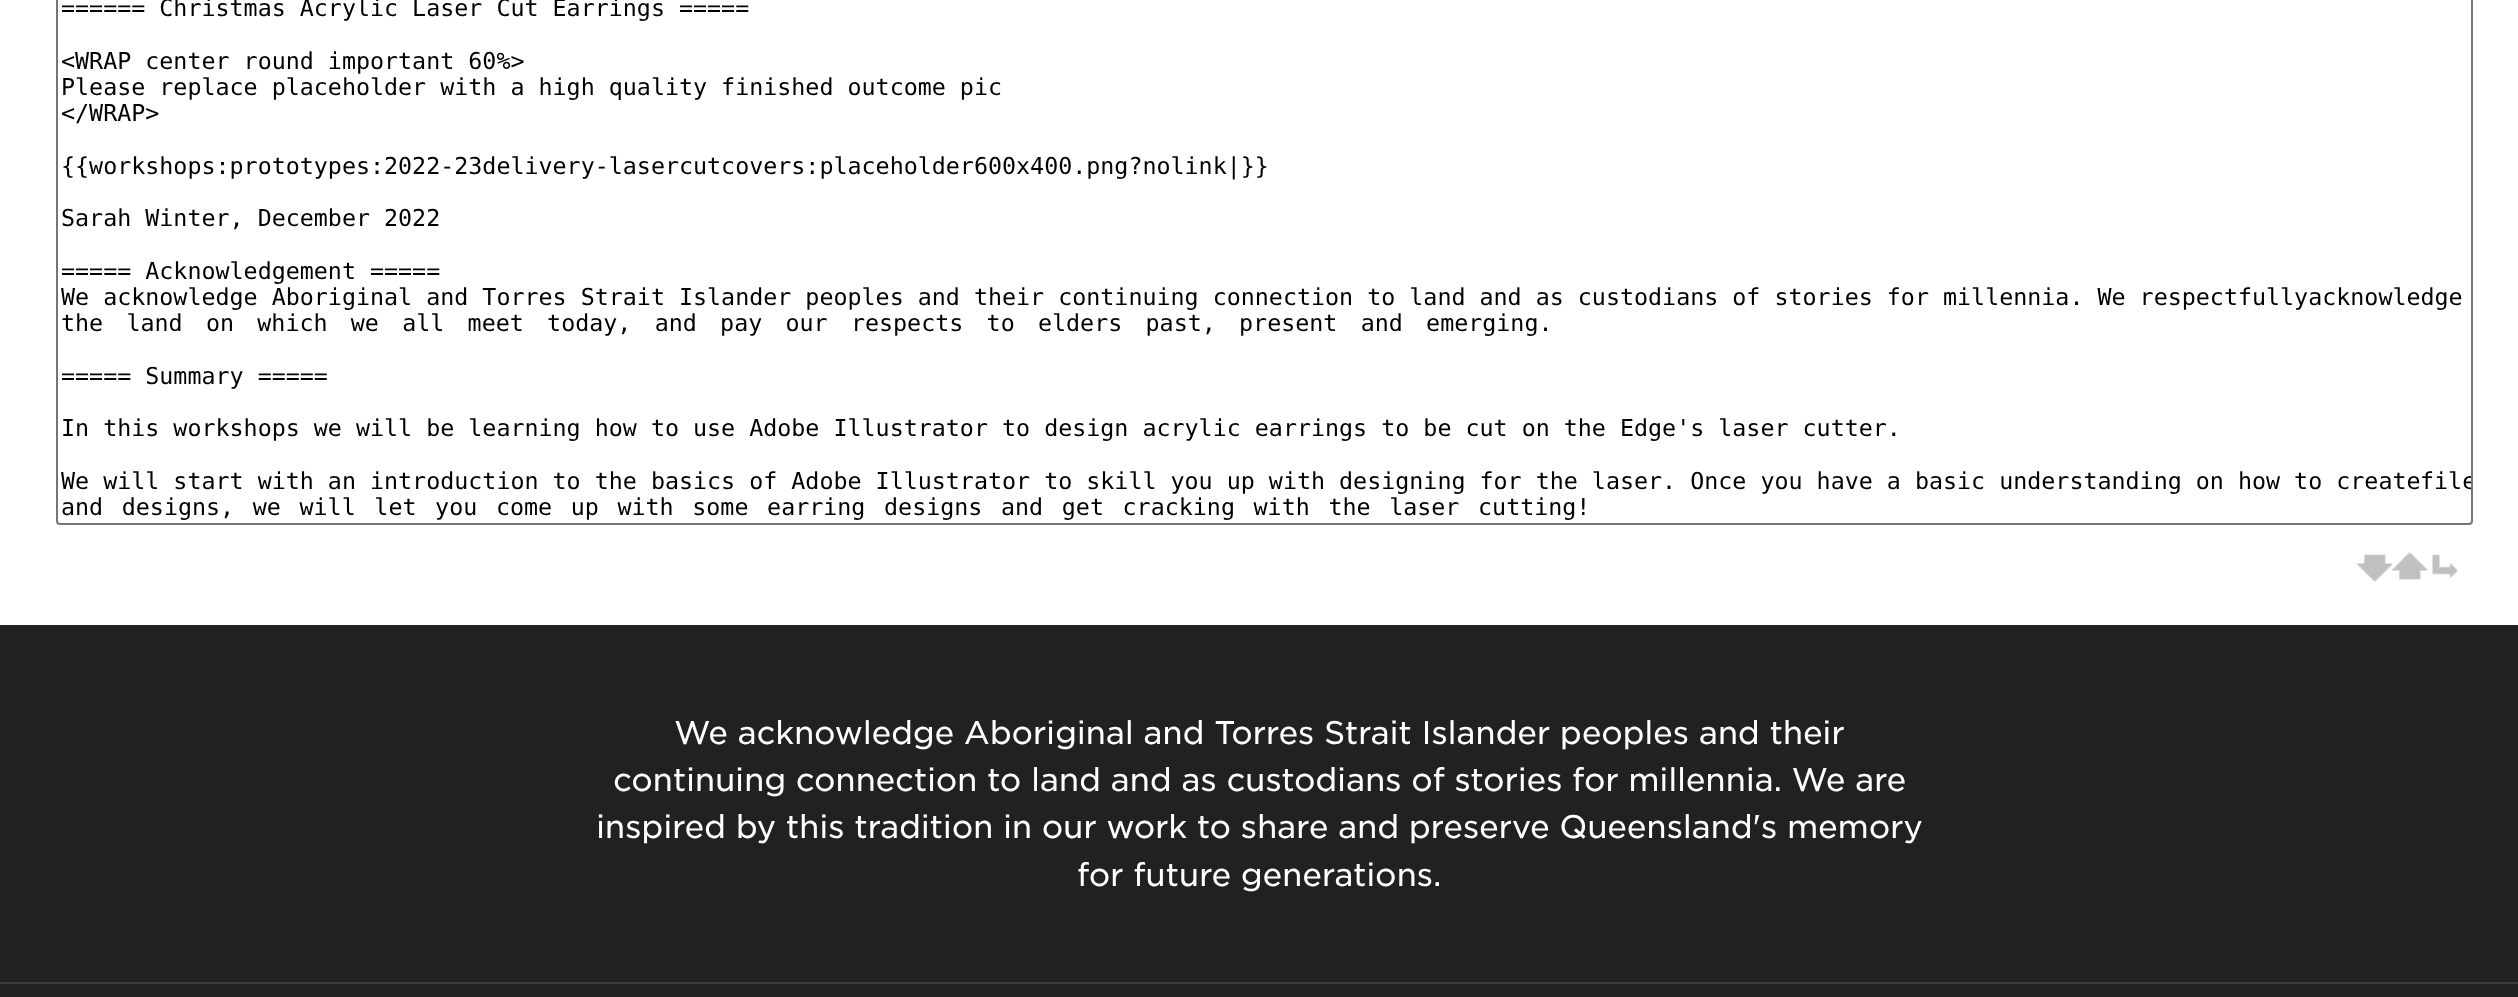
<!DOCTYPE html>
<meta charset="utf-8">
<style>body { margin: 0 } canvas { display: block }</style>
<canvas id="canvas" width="2518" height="997"></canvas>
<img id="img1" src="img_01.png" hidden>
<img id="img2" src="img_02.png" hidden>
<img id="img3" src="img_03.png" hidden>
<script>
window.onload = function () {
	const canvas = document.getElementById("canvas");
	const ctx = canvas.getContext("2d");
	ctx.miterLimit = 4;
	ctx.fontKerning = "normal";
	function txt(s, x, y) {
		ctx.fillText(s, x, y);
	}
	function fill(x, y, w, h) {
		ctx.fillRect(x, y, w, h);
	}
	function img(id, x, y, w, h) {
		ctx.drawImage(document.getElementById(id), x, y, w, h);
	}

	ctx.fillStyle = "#FFFFFF";
	fill(0, 0, 2518, 997);
	ctx.beginPath();
	ctx.roundRect(57, -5, 2415, 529, 3);
	ctx.strokeStyle = "#767676";
	ctx.lineWidth = 2;
	ctx.stroke();
	img("img1", 2357, 554, 36, 28);
	img("img2", 2392, 552, 36, 28);
	img("img3", 2432, 554, 26, 24);
	ctx.fillStyle = "#212121";
	fill(0, 625, 2518, 372);
	ctx.fillStyle = "#3C3C3C";
	fill(0, 982, 2518, 2);
	ctx.font = "23.33px DejaVu Sans Mono";
	ctx.fillStyle = "#000000";
	txt("====== Christmas Acrylic Laser Cut Earrings =====", 61, 16);
	txt("<WRAP center round important 60%>", 61, 69);
	txt("Please replace placeholder with a high quality finished outcome pic", 61, 95);
	txt("<\/WRAP>", 61, 121);
	txt("{{workshops:prototypes:2022-23delivery-lasercutcovers:placeholder600x400.png?nolink|}}", 61, 174);
	txt("Sarah Winter, December 2022", 61, 226);
	txt("===== Acknowledgement =====", 61, 279);
	txt("We acknowledge Aboriginal and Torres Strait Islander peoples and their continuing connection to land and as custodians of stories for millennia. We respectfullyacknowledge", 61, 305);
	ctx.wordSpacing = "9.25px";
	txt("the land on which we all meet today, and pay our respects to elders past, present and emerging.", 61, 331);
	ctx.wordSpacing = "0px";
	txt("===== Summary =====", 61, 384);
	txt("In this workshops we will be learning how to use Adobe Illustrator to design acrylic earrings to be cut on the Edge's laser cutter.", 61, 436);
	txt("We will start with an introduction to the basics of Adobe Illustrator to skill you up with designing for the laser. Once you have a basic understanding on how to create", 61, 489);
	ctx.save();
	ctx.beginPath();
	ctx.rect(58, 0, 2413, 523);
	ctx.clip();
	txt("file", 2420, 489);
	ctx.restore();
	ctx.wordSpacing = "4.6px";
	txt("and designs, we will let you come up with some earring designs and get cracking with the laser cutting!", 61, 515);
	ctx.letterSpacing = "-0.28px";
	ctx.wordSpacing = "0px";
	ctx.font = "31.5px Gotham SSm";
	ctx.fillStyle = "#FFFFFF";
	txt("We acknowledge Aboriginal and Torres Strait Islander peoples and their", 674, 744);
	txt("continuing connection to land and as custodians of stories for millennia. We are", 613, 791);
	txt("inspired by this tradition in our work to share and preserve Queensland's memory", 596, 838);
	txt("for future generations.", 1077, 886);
};
</script>
